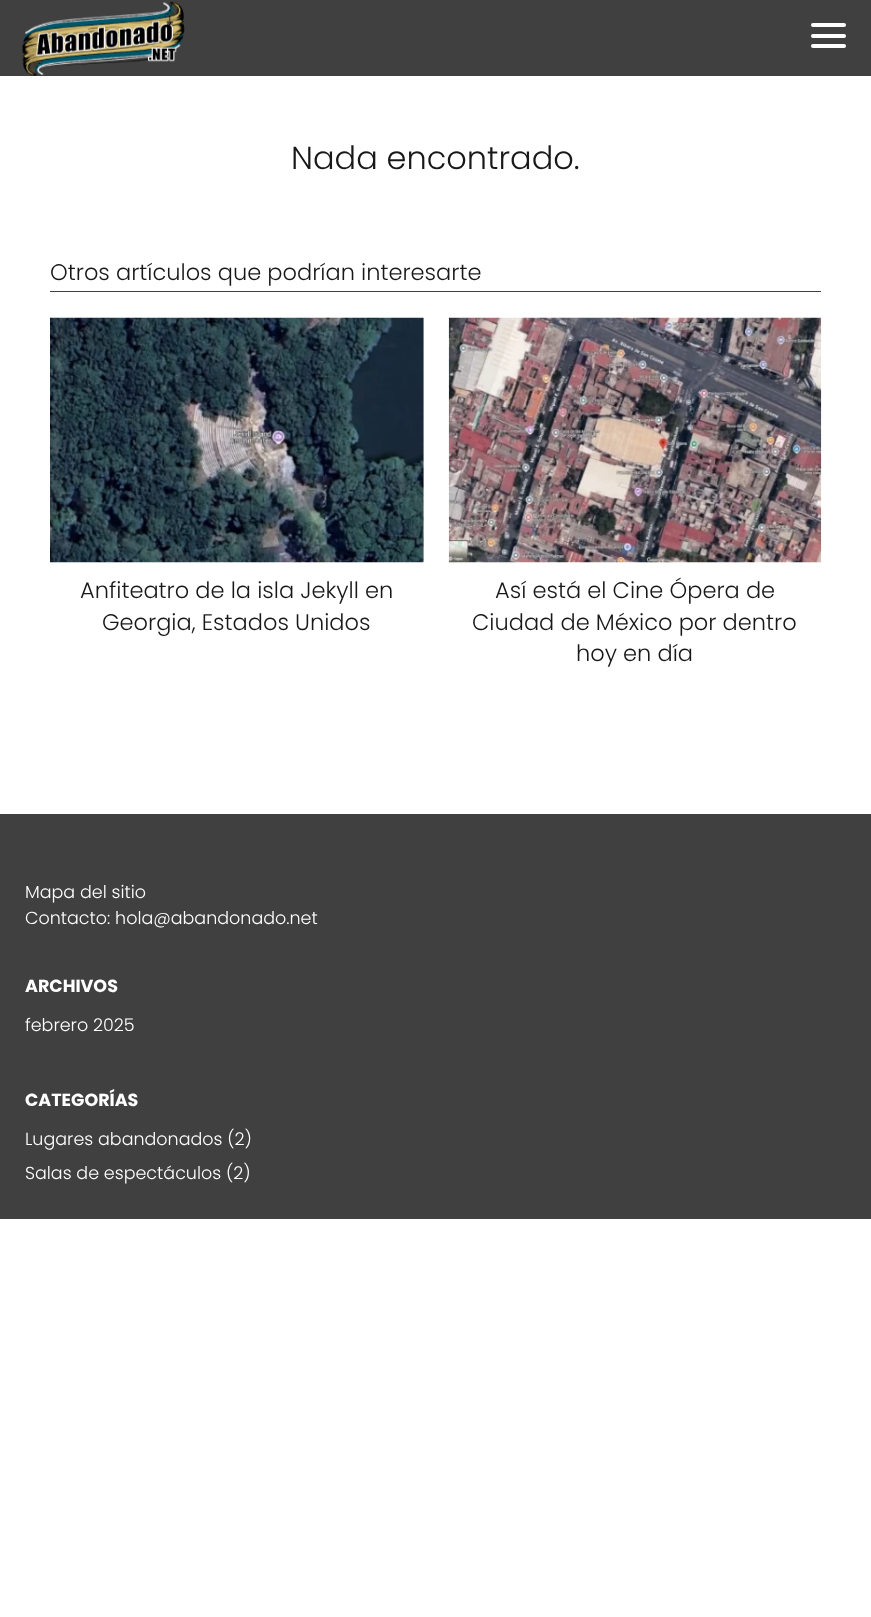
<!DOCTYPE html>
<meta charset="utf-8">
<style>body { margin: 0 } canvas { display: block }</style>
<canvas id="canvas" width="871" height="1617"></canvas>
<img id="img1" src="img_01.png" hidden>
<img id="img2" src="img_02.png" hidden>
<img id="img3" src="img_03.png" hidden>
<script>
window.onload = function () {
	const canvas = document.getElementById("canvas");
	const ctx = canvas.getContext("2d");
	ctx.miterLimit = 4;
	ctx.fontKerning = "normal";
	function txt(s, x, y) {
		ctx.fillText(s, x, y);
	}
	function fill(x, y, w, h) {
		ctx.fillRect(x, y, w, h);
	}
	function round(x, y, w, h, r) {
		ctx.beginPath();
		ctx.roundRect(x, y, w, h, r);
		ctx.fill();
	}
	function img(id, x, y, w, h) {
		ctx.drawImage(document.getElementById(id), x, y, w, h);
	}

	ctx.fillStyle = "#FFFFFF";
	fill(0, 0, 871, 1617);
	ctx.fillStyle = "#404040";
	fill(0, 0, 871, 76);
	img("img1", 22, 1, 163, 75);
	ctx.fillStyle = "#FFFFFF";
	round(811, 23, 35, 4, 2);
	round(811, 34, 35, 4, 2);
	round(811, 44, 35, 4, 2);
	ctx.fillStyle = "#404040";
	fill(50, 291, 771, 1);
	img("img2", 50, 317, 374, 246);
	img("img3", 448, 317, 374, 246);
	fill(0, 814, 871, 405);
	ctx.font = "300 32px Poppins";
	ctx.fillStyle = "#181818";
	txt("Nada encontrado.", 291, 169);
	ctx.font = "300 22.5px Poppins";
	txt("Otros artículos que podrían interesarte", 50, 280);
	txt("Anfiteatro de la isla Jekyll en", 80, 598);
	txt("Georgia, Estados Unidos", 102, 630);
	txt("Así está el Cine Ópera de", 495, 598);
	txt("Ciudad de México por dentro", 472, 630);
	txt("hoy en día", 576, 661);
	ctx.font = "300 17.5px Poppins";
	ctx.fillStyle = "#FFFFFF";
	txt("Mapa del sitio", 25, 898);
	txt("Contacto: hola@abandonado.net", 25, 924);
	ctx.font = "bold 17.5px Poppins";
	txt("ARCHIVOS", 25, 992);
	ctx.font = "300 17.5px Poppins";
	txt("febrero 2025", 25, 1031);
	ctx.font = "bold 17.5px Poppins";
	txt("CATEGORÍAS", 25, 1106);
	ctx.font = "300 17.5px Poppins";
	txt("Lugares abandonados (2)", 25, 1145);
	txt("Salas de espectáculos (2)", 25, 1179);
};
</script>
